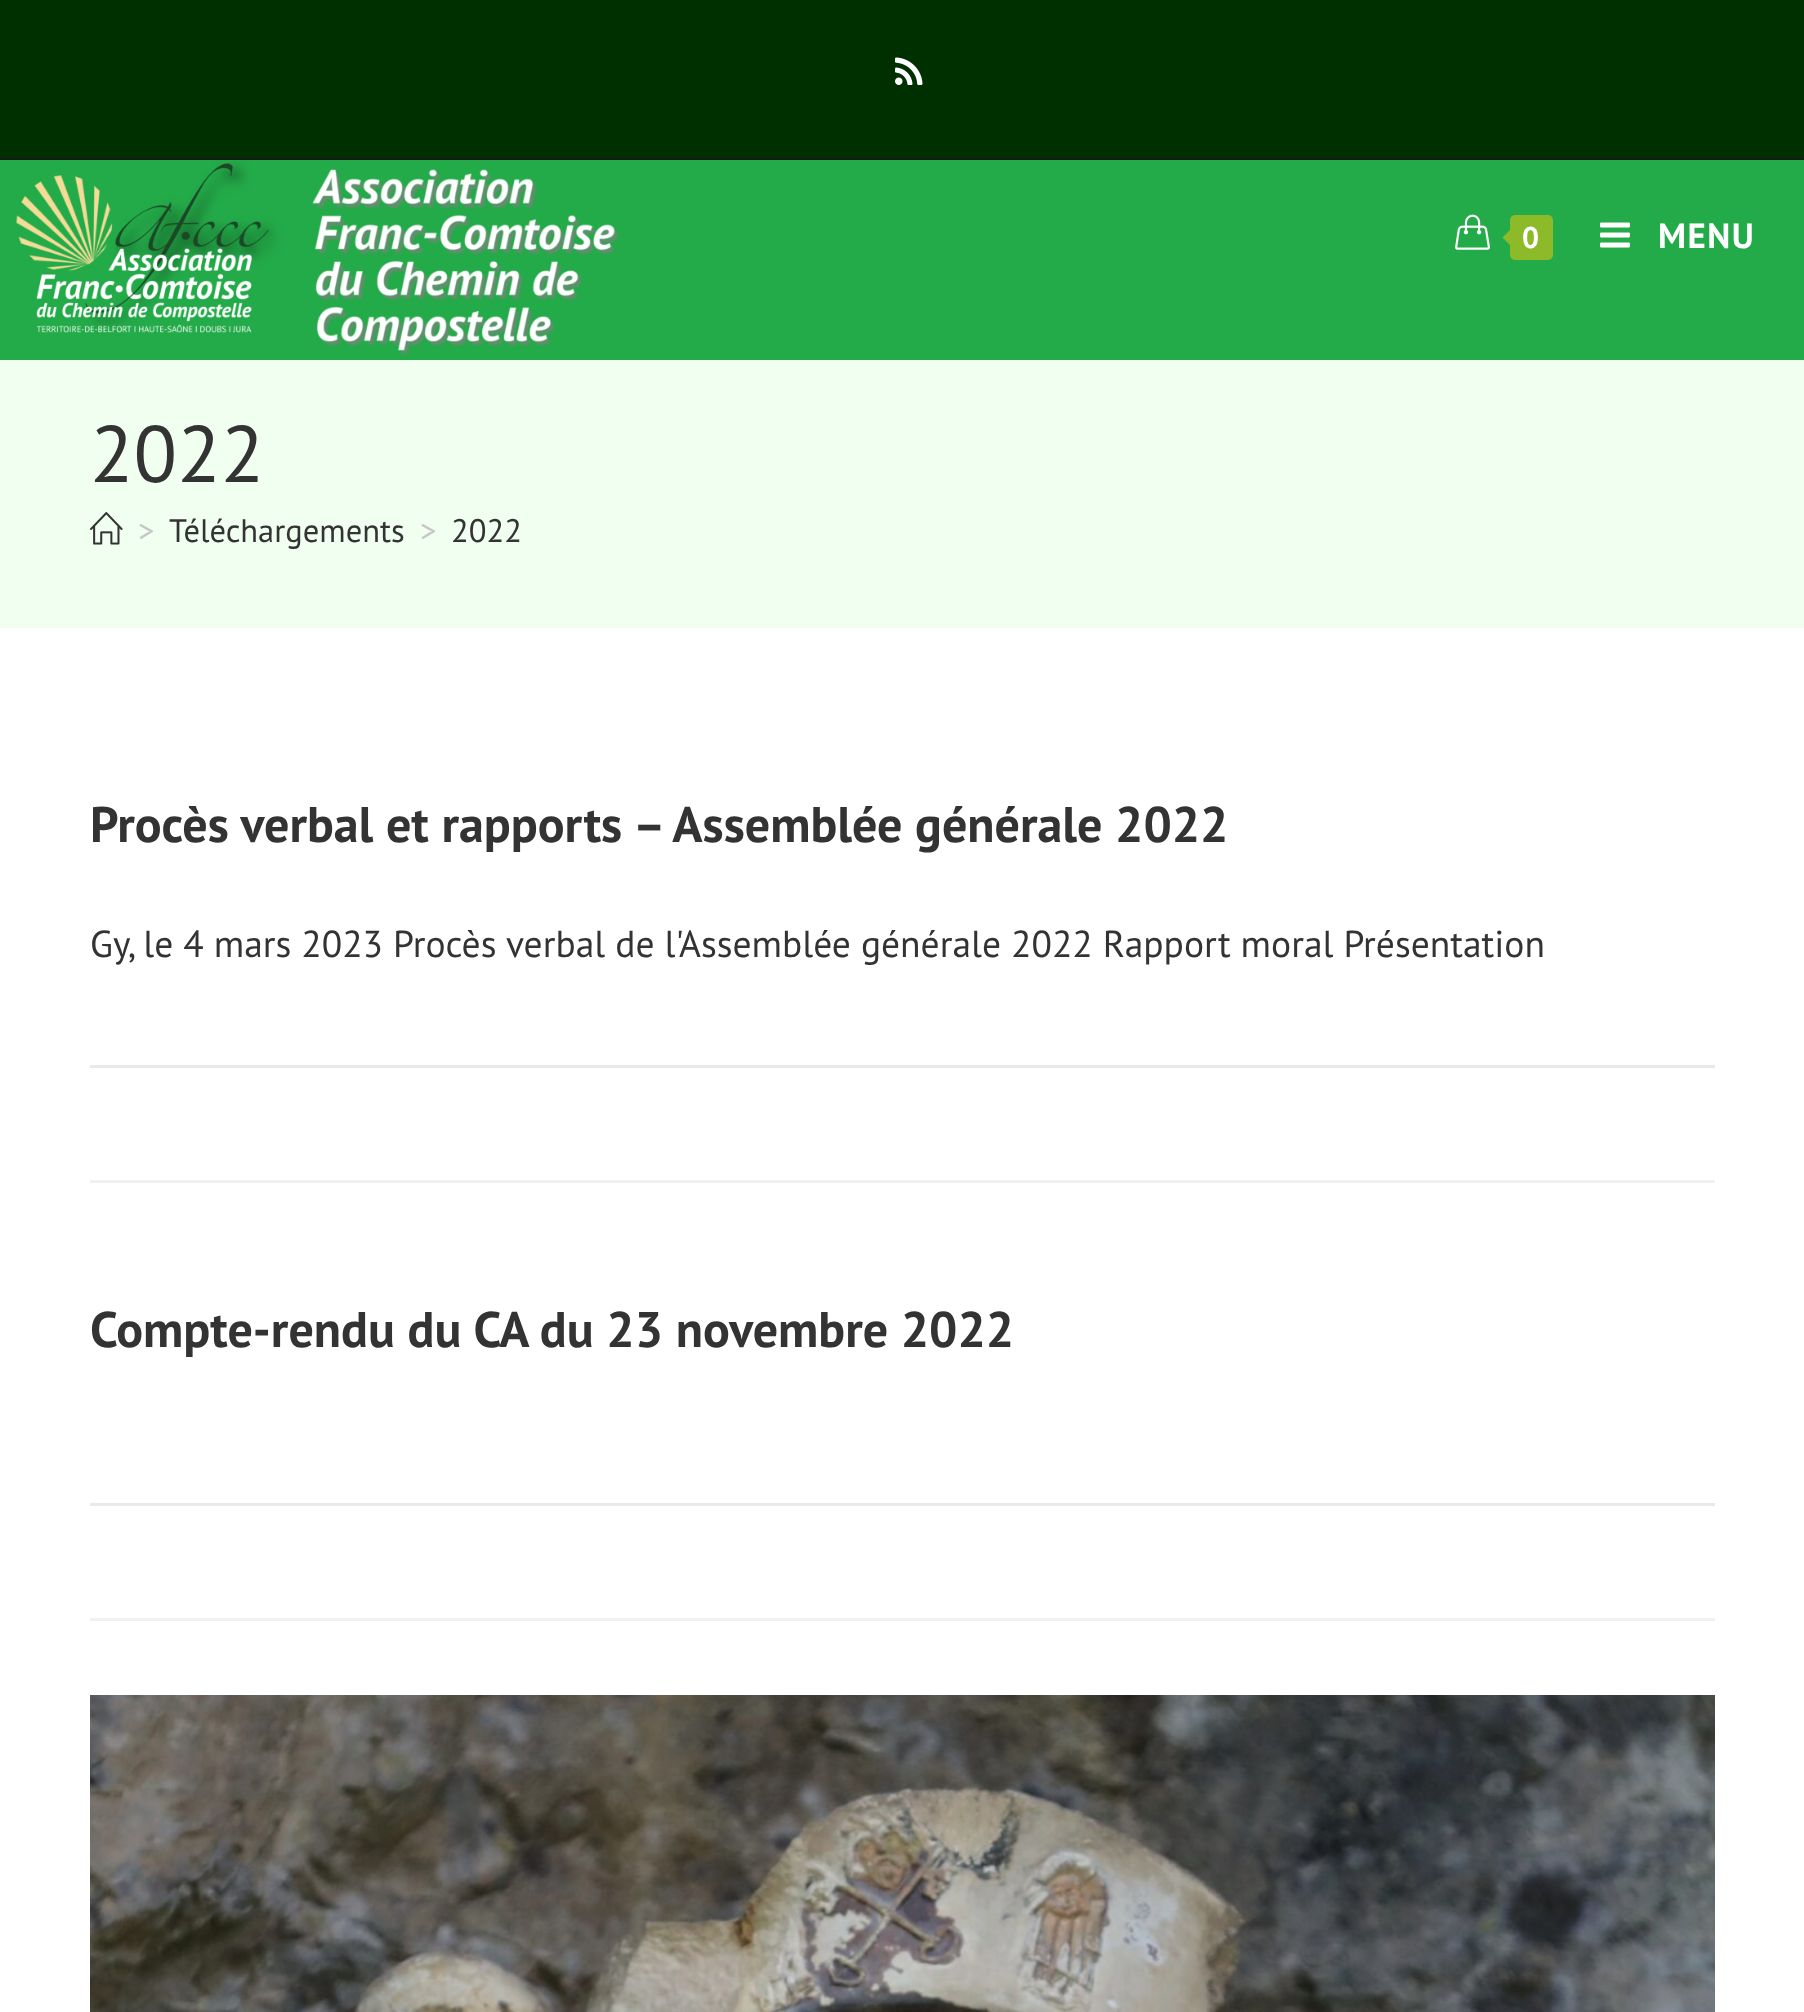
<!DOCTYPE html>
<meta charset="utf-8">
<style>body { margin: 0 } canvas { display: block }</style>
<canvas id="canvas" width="1804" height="2012"></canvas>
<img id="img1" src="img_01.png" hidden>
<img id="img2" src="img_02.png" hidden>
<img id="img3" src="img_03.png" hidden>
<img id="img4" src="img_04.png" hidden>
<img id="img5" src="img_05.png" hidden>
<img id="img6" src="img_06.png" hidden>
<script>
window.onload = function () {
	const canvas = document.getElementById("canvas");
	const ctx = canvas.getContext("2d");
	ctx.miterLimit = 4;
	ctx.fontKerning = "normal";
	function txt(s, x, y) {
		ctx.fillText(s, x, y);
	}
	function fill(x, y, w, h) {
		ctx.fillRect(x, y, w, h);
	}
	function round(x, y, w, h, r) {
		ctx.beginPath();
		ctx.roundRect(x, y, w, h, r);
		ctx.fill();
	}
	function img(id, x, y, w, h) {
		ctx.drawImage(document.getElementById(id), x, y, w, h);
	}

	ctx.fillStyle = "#FFFFFF";
	fill(0, 0, 1804, 2012);
	ctx.fillStyle = "#003000";
	fill(0, 0, 1804, 158);
	ctx.fillStyle = "#161819";
	fill(0, 158, 1804, 2);
	img("img1", 895, 57, 28, 28);
	ctx.fillStyle = "#24AB49";
	fill(0, 160, 1804, 200);
	img("img2", 16, 161, 603, 194);
	img("img3", 1455, 214, 35, 36);
	ctx.fillStyle = "#8CBA29";
	round(1510, 215, 43, 45, 5);
	ctx.beginPath();
	ctx.moveTo(1515, 225);
	ctx.lineTo(1515, 250);
	ctx.lineTo(1502.5, 237.5);
	ctx.closePath();
	ctx.fill();
	img("img4", 1600, 222, 30, 26);
	ctx.fillStyle = "#F0FFF0";
	fill(0, 360, 1804, 268);
	img("img5", 90, 512, 33, 33);
	ctx.fillStyle = "#F1F1F1";
	fill(90, 1180, 1625, 3);
	ctx.fillStyle = "#E9E9E9";
	fill(90, 1065, 1625, 3);
	ctx.fillStyle = "#F1F1F1";
	fill(90, 1618, 1625, 3);
	ctx.fillStyle = "#E9E9E9";
	fill(90, 1503, 1625, 3);
	img("img6", 90, 1695, 1625, 317);
	ctx.letterSpacing = "1.5px";
	ctx.font = "bold 30px PT Sans";
	ctx.fillStyle = "#FFFFFF";
	txt("0", 1522, 248);
	ctx.font = "bold 35px PT Sans";
	txt("MENU", 1658, 248);
	ctx.letterSpacing = "0px";
	ctx.font = "80px PT Sans";
	ctx.fillStyle = "#333333";
	txt("2022", 90, 482);
	ctx.font = "32.5px PT Sans";
	ctx.fillStyle = "#C6C6C6";
	txt(">", 138, 542);
	ctx.fillStyle = "#333333";
	txt("Téléchargements", 169, 542);
	ctx.fillStyle = "#C6C6C6";
	txt(">", 420, 542);
	ctx.fillStyle = "#333333";
	txt("2022", 451, 542);
	ctx.font = "bold 50px PT Sans";
	txt("Procès verbal et rapports – Assemblée générale 2022", 90, 842);
	ctx.font = "37.5px PT Sans";
	txt("Gy, le 4 mars 2023 Procès verbal de l'Assemblée générale 2022 Rapport moral Présentation", 90, 957);
	ctx.font = "bold 50px PT Sans";
	txt("Compte-rendu du CA du 23 novembre 2022", 90, 1347);
};
</script>
